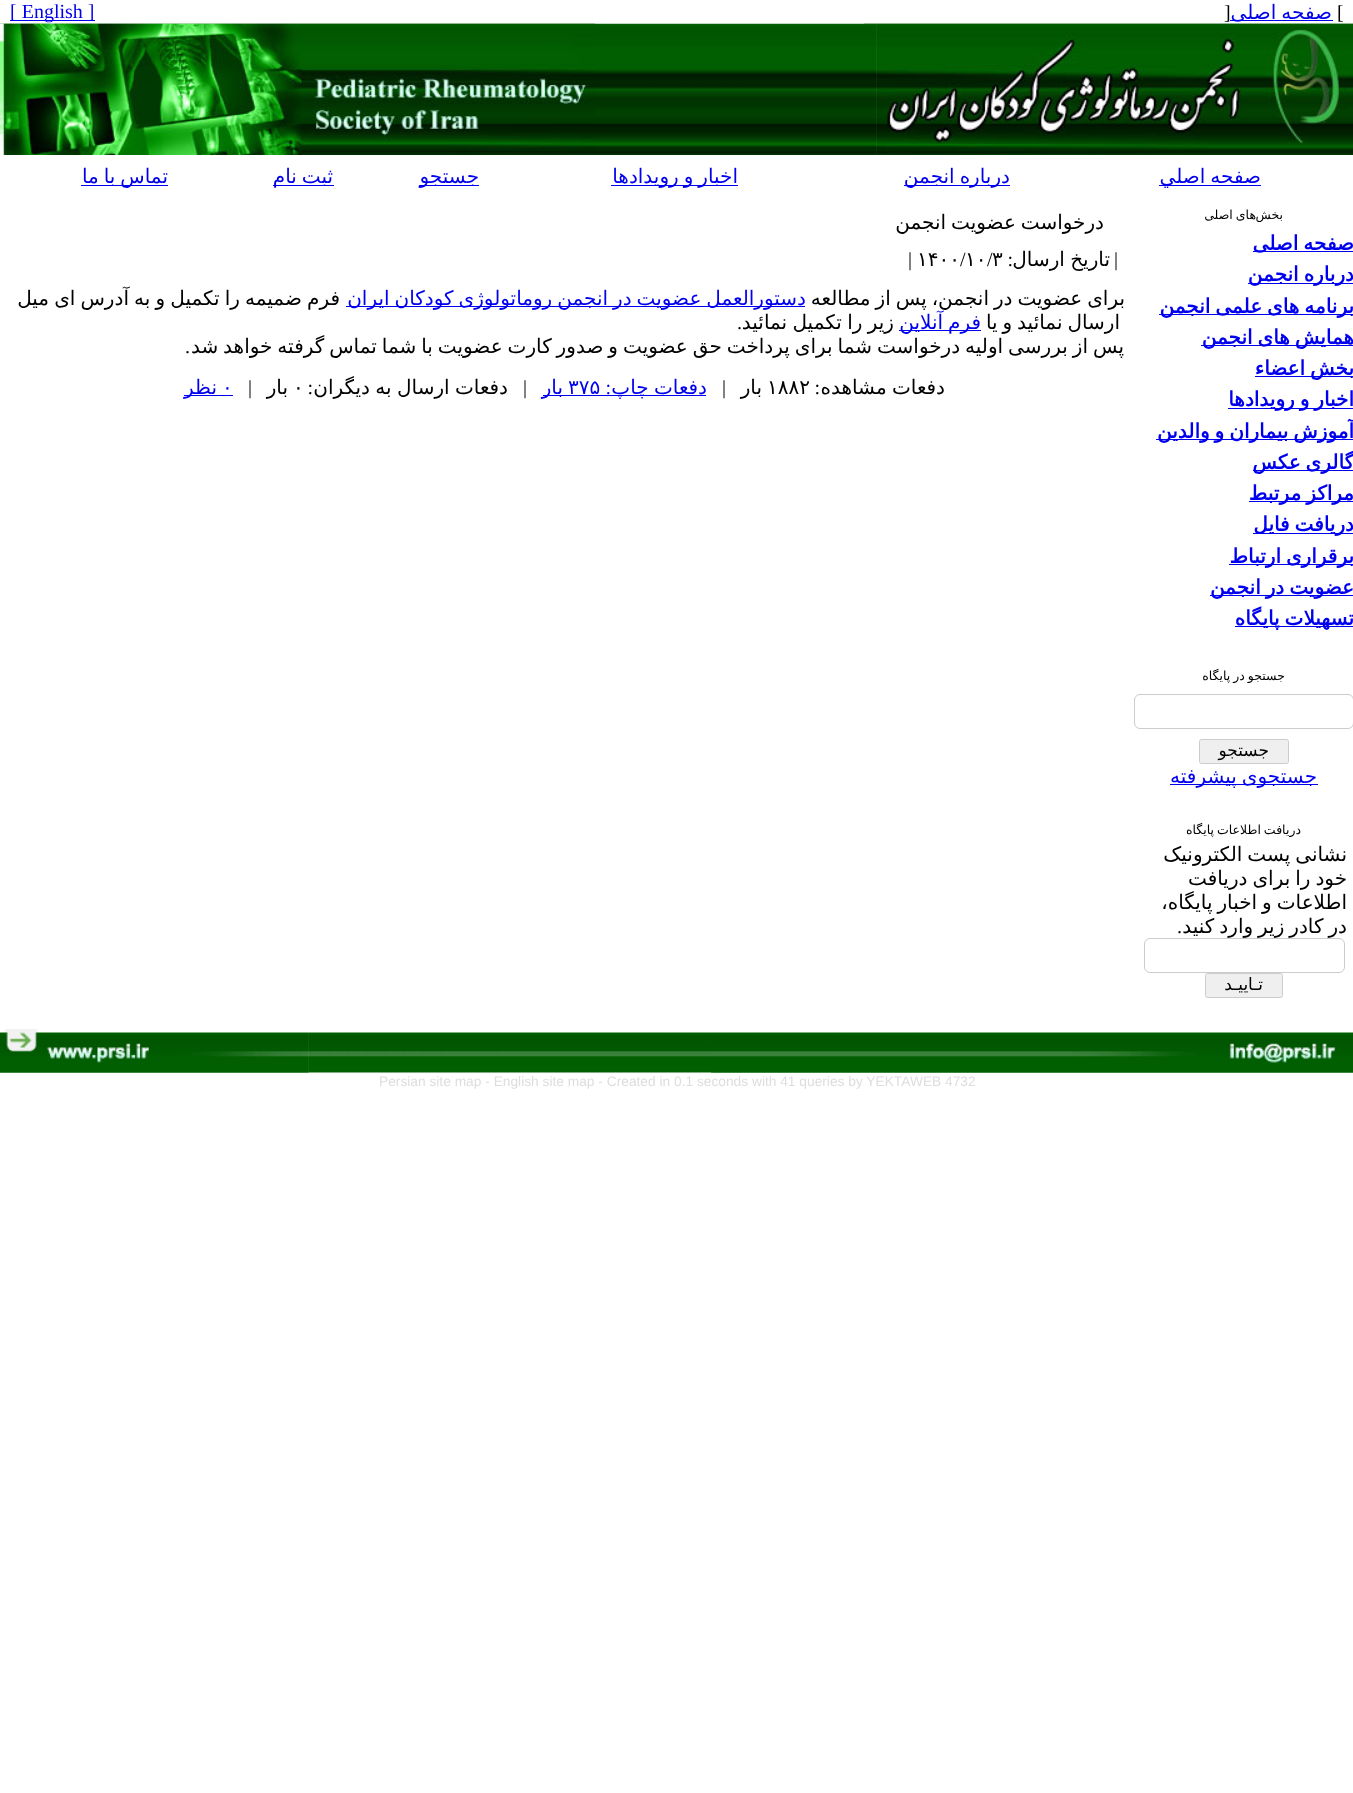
<!DOCTYPE html>
<meta charset="utf-8">
<style>body { margin: 0 } canvas { display: block }</style>
<canvas id="canvas" width="1353" height="1793"></canvas>
<img id="img1" src="img_01.png" hidden>
<img id="img2" src="img_03.png" hidden>
<img id="img3" src="img_02.png" hidden>
<img id="img4" src="img_04.png" hidden>
<img id="img5" src="img_05.png" hidden>
<img id="img6" src="img_06.png" hidden>
<img id="img7" src="img_07.png" hidden>
<img id="img8" src="img_08.png" hidden>
<img id="img9" src="img_09.png" hidden>
<img id="img10" src="img_10.png" hidden>
<script>
window.onload = function () {
	const canvas = document.getElementById("canvas");
	const ctx = canvas.getContext("2d");
	ctx.miterLimit = 4;
	ctx.fontKerning = "normal";
	function txt(s, x, y) {
		ctx.fillText(s, x, y);
	}
	function fill(x, y, w, h) {
		ctx.fillRect(x, y, w, h);
	}
	function img(id, x, y, w, h) {
		ctx.drawImage(document.getElementById(id), x, y, w, h);
	}

	ctx.fillStyle = "#FFFFFF";
	fill(0, 0, 1353, 1793);
	ctx.fillStyle = "#0000EE";
	fill(1230, 20, 103, 1);
	fill(10, 20, 85, 1);
	img("img1", 876, 23, 477, 132);
	img("img2", 595, 23, 282, 132);
	img("img3", 876, 23, 477, 132);
	img("img4", 863, 23, 14, 1);
	img("img5", 0, 23, 595, 1);
	img("img6", 0, 23, 595, 132);
	fill(1159, 185, 102, 1);
	fill(904, 185, 106, 1);
	fill(611, 185, 127, 1);
	fill(419, 185, 60, 1);
	fill(273, 185, 61, 1);
	fill(81, 185, 87, 1);
	fill(1253, 251, 100, 1);
	fill(1248, 283, 105, 1);
	fill(1159, 314, 194, 1);
	fill(1201, 345, 152, 1);
	fill(1255, 376, 98, 1);
	fill(1228, 408, 125, 1);
	fill(1156, 439, 197, 1);
	fill(1253, 470, 100, 1);
	fill(1249, 501, 104, 1);
	fill(1253, 533, 100, 1);
	fill(1229, 564, 124, 1);
	fill(1210, 595, 143, 1);
	fill(1235, 626, 118, 1);
	ctx.beginPath();
	ctx.roundRect(1134.5, 694.5, 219, 34, 5.5);
	ctx.strokeStyle = "#CCCCCC";
	ctx.stroke();
	ctx.fillStyle = "#EFEFEF";
	ctx.beginPath();
	ctx.roundRect(1199.5, 739.5, 89, 24, 2);
	ctx.fill();
	ctx.stroke();
	ctx.fillStyle = "#0000EE";
	fill(1170, 784, 148, 1);
	ctx.beginPath();
	ctx.roundRect(1144.5, 938.5, 200, 34, 5.5);
	ctx.stroke();
	ctx.fillStyle = "#EFEFEF";
	ctx.beginPath();
	ctx.roundRect(1205.5, 973.5, 77, 24, 2);
	ctx.fill();
	ctx.stroke();
	ctx.fillStyle = "#0000EE";
	fill(346, 306, 459, 1);
	fill(899, 330, 82, 1);
	fill(543, 395, 163, 1);
	fill(184, 395, 49, 1);
	img("img7", 308, 1032, 1045, 41);
	img("img8", 711, 1043, 642, 30);
	img("img9", 0, 1032, 309, 41);
	img("img10", 0, 1029, 309, 44);
	ctx.font = "20px Liberation Serif";
	ctx.fillStyle = "#000000";
	txt("[", 1337, 19);
	ctx.wordSpacing = "-1.4px";
	ctx.direction = "rtl";
	ctx.font = "20px DejaVu Sans";
	ctx.fillStyle = "#0000EE";
	txt("صفحه اصلی", 1332, 19);
	ctx.wordSpacing = "0px";
	ctx.direction = "ltr";
	ctx.font = "20px Liberation Serif";
	ctx.fillStyle = "#000000";
	txt("]", 1224, 19);
	ctx.fillStyle = "#0000EE";
	txt("[ English ]", 10, 18);
	ctx.wordSpacing = "-1.4px";
	ctx.direction = "rtl";
	ctx.font = "20px DejaVu Sans";
	txt("صفحه اصلي", 1261, 183);
	txt("درباره انجمن", 1010, 183);
	txt("اخبار و رویدادها", 738, 183);
	ctx.wordSpacing = "0px";
	txt("جستجو", 479, 183);
	ctx.wordSpacing = "-1.4px";
	txt("ثبت نام", 333, 183);
	txt("تماس با ما", 168, 183);
	ctx.wordSpacing = "-1px";
	ctx.font = "12.5px DejaVu Sans";
	ctx.fillStyle = "#000000";
	txt("های اصلی", 1256, 219);
	ctx.wordSpacing = "0px";
	txt("بخش", 1283, 219);
	ctx.wordSpacing = "-1.4px";
	ctx.font = "bold 20px DejaVu Sans";
	ctx.fillStyle = "#0000EE";
	txt("صفحه اصلی", 1354, 250);
	txt("درباره انجمن", 1354, 281);
	txt("برنامه های علمی انجمن", 1354, 313);
	txt("همایش های انجمن", 1354, 344);
	txt("بخش اعضاء", 1354, 375);
	txt("اخبار و رویدادها", 1354, 406);
	txt("آموزش بیماران و والدین", 1354, 438);
	txt("گالری عکس", 1354, 469);
	txt("مراکز مرتبط", 1354, 500);
	txt("دریافت فایل", 1354, 531);
	txt("برقراری ارتباط", 1354, 563);
	txt("عضویت در انجمن", 1354, 594);
	txt("تسهیلات پایگاه", 1354, 625);
	ctx.wordSpacing = "-1px";
	ctx.font = "12.5px DejaVu Sans";
	ctx.fillStyle = "#000000";
	txt("جستجو در پایگاه", 1285, 680);
	ctx.wordSpacing = "0px";
	ctx.font = "17px DejaVu Sans";
	txt("جستجو", 1269, 756);
	ctx.wordSpacing = "-1.4px";
	ctx.font = "20px DejaVu Sans";
	ctx.fillStyle = "#0000EE";
	txt("جستجوی پیشرفته", 1317, 783);
	ctx.wordSpacing = "-1px";
	ctx.font = "12.5px DejaVu Sans";
	ctx.fillStyle = "#000000";
	txt("دریافت اطلاعات پایگاه", 1301, 834);
	ctx.wordSpacing = "-1.4px";
	ctx.font = "20px DejaVu Sans";
	txt("نشانی پست الکترونیک", 1347, 861);
	txt("خود را برای دریافت", 1347, 885);
	txt("اطلاعات و اخبار پایگاه،", 1347, 909);
	txt("در کادر زیر وارد کنید", 1347, 933);
	ctx.wordSpacing = "0px";
	ctx.font = "20px Liberation Serif";
	txt(".", 1182, 933);
	ctx.font = "17px DejaVu Sans";
	txt("تـاییـد", 1263, 990);
	ctx.wordSpacing = "-1.4px";
	ctx.font = "20px DejaVu Sans";
	txt("درخواست عضویت انجمن", 1104, 229);
	ctx.wordSpacing = "0px";
	ctx.font = "20px Liberation Serif";
	txt("|", 1118, 266);
	ctx.wordSpacing = "-1px";
	ctx.font = "20px DejaVu Sans";
	txt("تاریخ ارسال", 1110, 266);
	ctx.wordSpacing = "0px";
	ctx.font = "20px Liberation Serif";
	txt(":", 1013, 266);
	ctx.direction = "ltr";
	ctx.font = "20px DejaVu Sans";
	txt("۳", 992, 266);
	ctx.font = "20px Liberation Serif";
	txt("/", 987, 266);
	ctx.font = "20px DejaVu Sans";
	txt("۱۰", 965, 266);
	ctx.font = "20px Liberation Serif";
	txt("/", 960, 266);
	ctx.font = "20px DejaVu Sans";
	txt("۱۴۰۰", 917, 266);
	ctx.font = "20px Liberation Serif";
	txt("|", 908, 266);
	ctx.wordSpacing = "-1.4px";
	ctx.direction = "rtl";
	ctx.font = "20px DejaVu Sans";
	txt("برای عضویت در انجمن، پس از مطالعه", 1125, 305);
	ctx.fillStyle = "#0000EE";
	txt("دستورالعمل عضویت در انجمن روماتولوژی کودکان ایران", 806, 305);
	ctx.wordSpacing = "-1.25px";
	ctx.fillStyle = "#000000";
	txt("فرم ضمیمه را تکمیل و به آدرس ای میل", 340, 305);
	ctx.wordSpacing = "-1.4px";
	txt("ارسال نمائید و یا", 1120, 329);
	ctx.fillStyle = "#0000EE";
	txt("فرم آنلاین", 981, 329);
	ctx.wordSpacing = "-1px";
	ctx.fillStyle = "#000000";
	txt("زیر را تکمیل نمائید", 894, 329);
	ctx.wordSpacing = "0px";
	ctx.font = "20px Liberation Serif";
	txt(".", 742, 329);
	ctx.wordSpacing = "-1.4px";
	ctx.font = "20px DejaVu Sans";
	txt("پس از بررسی اولیه درخواست شما برای پرداخت حق عضویت و صدور کارت عضویت با شما تماس گرفته خواهد شد", 1124, 353);
	ctx.wordSpacing = "0px";
	ctx.font = "20px Liberation Serif";
	txt(".", 190, 353);
	ctx.wordSpacing = "-1px";
	ctx.font = "20px DejaVu Sans";
	txt("دفعات مشاهده", 945, 394);
	ctx.wordSpacing = "0px";
	ctx.font = "20px Liberation Serif";
	txt(":", 820, 394);
	ctx.direction = "ltr";
	ctx.font = "20px DejaVu Sans";
	txt("۱۸۸۲", 767, 394);
	ctx.direction = "rtl";
	txt("بار", 762, 394);
	ctx.font = "20px Liberation Serif";
	txt("|", 726, 394);
	ctx.wordSpacing = "-1px";
	ctx.font = "20px DejaVu Sans";
	ctx.fillStyle = "#0000EE";
	txt("دفعات چاپ", 707, 394);
	ctx.wordSpacing = "0px";
	ctx.font = "20px Liberation Serif";
	txt(":", 611, 394);
	ctx.direction = "ltr";
	ctx.font = "20px DejaVu Sans";
	txt("۳۷۵", 568, 394);
	ctx.direction = "rtl";
	txt("بار", 563, 394);
	ctx.direction = "ltr";
	ctx.font = "20px Liberation Serif";
	ctx.fillStyle = "#000000";
	txt("|", 523, 394);
	ctx.wordSpacing = "-1px";
	ctx.direction = "rtl";
	ctx.font = "20px DejaVu Sans";
	txt("دفعات ارسال به دیگران", 508, 394);
	ctx.wordSpacing = "0px";
	ctx.font = "20px Liberation Serif";
	txt(":", 313, 394);
	ctx.direction = "ltr";
	ctx.font = "20px DejaVu Sans";
	txt("۰", 293, 394);
	ctx.direction = "rtl";
	txt("بار", 288, 394);
	ctx.font = "20px Liberation Serif";
	txt("|", 252, 394);
	ctx.direction = "ltr";
	ctx.font = "20px DejaVu Sans";
	ctx.fillStyle = "#0000EE";
	txt("۰", 222, 394);
	ctx.direction = "rtl";
	txt("نظر", 217, 394);
	ctx.direction = "ltr";
	ctx.font = "13.75px Liberation Sans";
	ctx.fillStyle = "#DDDDDD";
	txt("Persian site map - English site map - Created in 0.1 seconds with 41 queries by YEKTAWEB 4732", 379, 1086);
};
</script>
